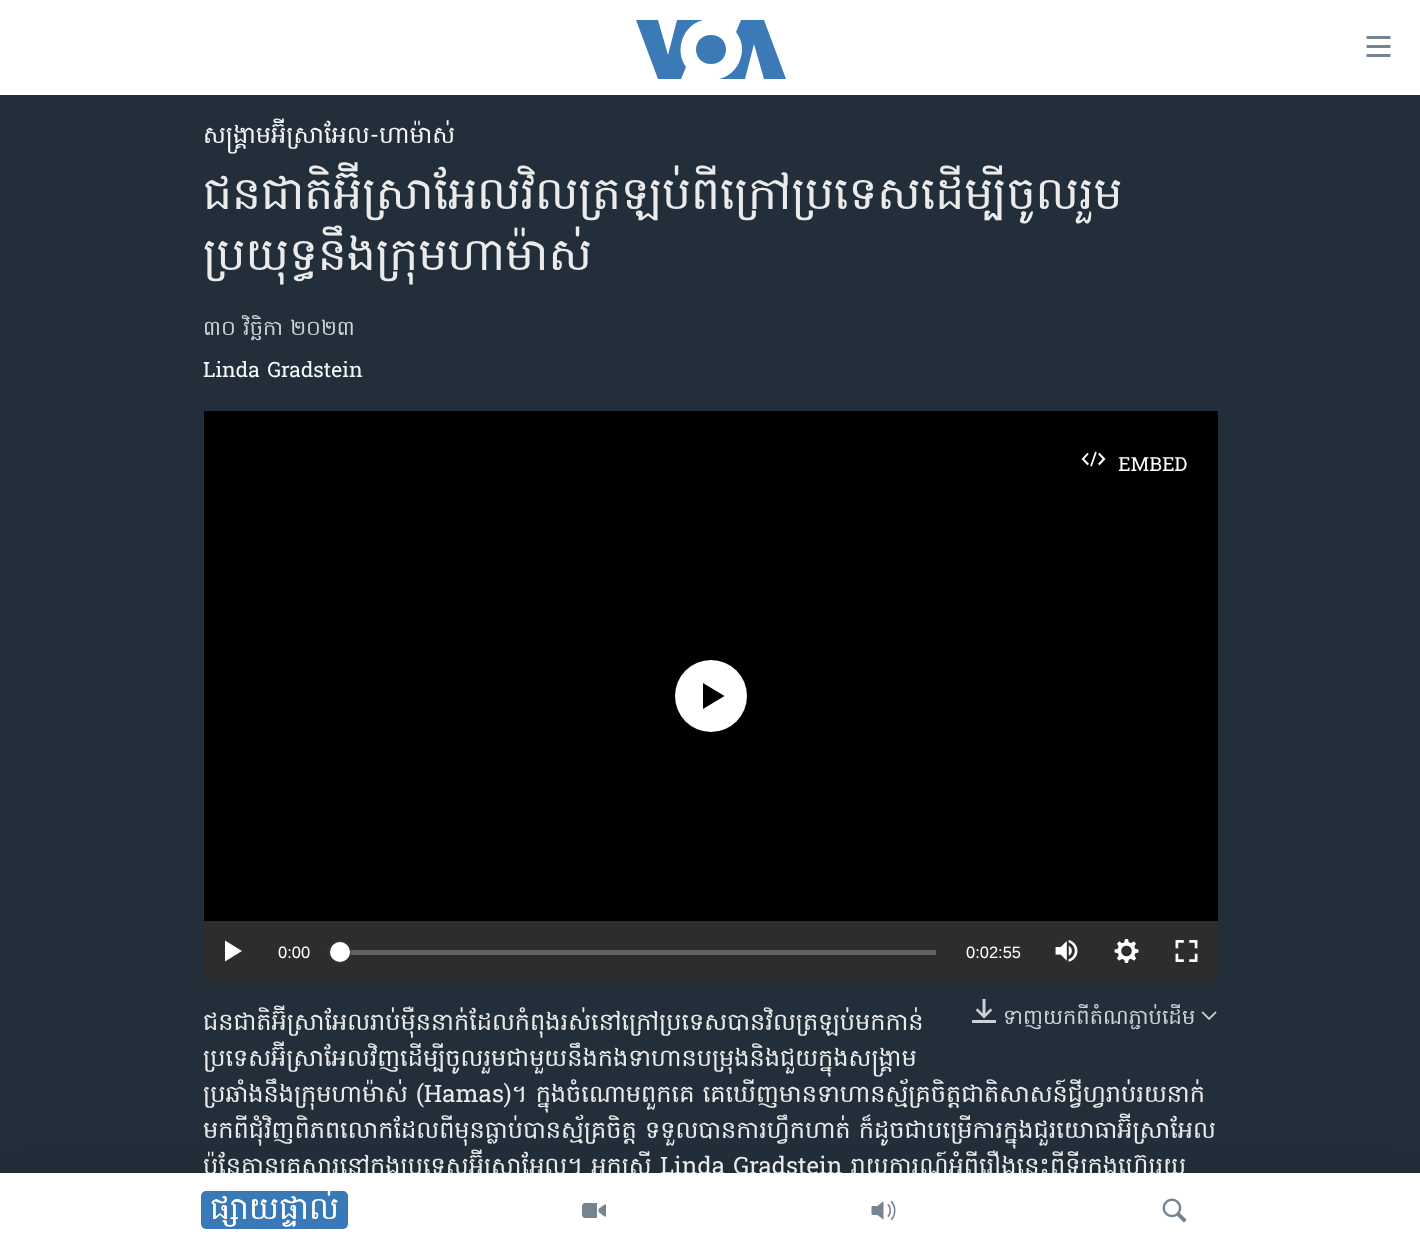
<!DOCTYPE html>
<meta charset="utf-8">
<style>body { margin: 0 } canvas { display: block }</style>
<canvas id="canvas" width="1420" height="1248"></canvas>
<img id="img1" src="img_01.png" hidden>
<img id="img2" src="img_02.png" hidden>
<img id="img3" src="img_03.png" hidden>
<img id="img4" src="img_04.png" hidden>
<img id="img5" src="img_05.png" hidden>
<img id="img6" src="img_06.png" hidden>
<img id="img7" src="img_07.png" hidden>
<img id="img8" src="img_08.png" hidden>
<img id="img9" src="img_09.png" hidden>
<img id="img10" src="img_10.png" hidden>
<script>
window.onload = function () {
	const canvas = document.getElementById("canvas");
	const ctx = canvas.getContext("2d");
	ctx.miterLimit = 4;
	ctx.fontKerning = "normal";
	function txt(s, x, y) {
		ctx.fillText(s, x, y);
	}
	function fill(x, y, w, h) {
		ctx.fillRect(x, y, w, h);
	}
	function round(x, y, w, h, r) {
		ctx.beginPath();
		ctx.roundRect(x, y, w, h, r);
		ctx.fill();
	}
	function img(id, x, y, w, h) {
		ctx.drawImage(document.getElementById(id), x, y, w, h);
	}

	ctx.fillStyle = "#222F3A";
	fill(0, 0, 1420, 1248);
	ctx.fillStyle = "#000000";
	fill(204, 411, 1014, 510);
	img("img1", 1081, 451, 25, 16);
	ctx.fillStyle = "#FFFFFF";
	ctx.beginPath();
	ctx.arc(711, 696, 36, 0, Math.PI * 2);
	ctx.fill();
	ctx.fillStyle = "#000000";
	ctx.beginPath();
	ctx.moveTo(703, 709);
	ctx.lineTo(724.5, 696);
	ctx.lineTo(703, 683);
	ctx.closePath();
	ctx.fill();
	ctx.fillStyle = "#2D2D2D";
	fill(204, 921, 1014, 60);
	ctx.fillStyle = "#FFFFFF";
	ctx.beginPath();
	ctx.moveTo(225, 961.5);
	ctx.lineTo(242, 951);
	ctx.lineTo(225, 940.5);
	ctx.closePath();
	ctx.fill();
	ctx.fillStyle = "#626262";
	fill(341, 950, 595, 5);
	ctx.fillStyle = "#414144";
	ctx.filter = "blur(2px)";
	ctx.beginPath();
	ctx.roundRect(330, 942, 20, 20, 10);
	ctx.fill();
	ctx.filter = "none";
	ctx.fillStyle = "#FFFFFF";
	ctx.beginPath();
	ctx.arc(340, 952, 10, 0, Math.PI * 2);
	ctx.fill();
	img("img2", 1055, 940, 23, 22);
	img("img3", 1114, 939, 25, 24);
	img("img4", 1175, 940, 23, 22);
	img("img5", 972, 999, 24, 24);
	img("img6", 1201, 1011, 16, 9);
	fill(0, 0, 1420, 95);
	ctx.fillStyle = "#3B79B7";
	ctx.beginPath();
	ctx.moveTo(686, 67);
	ctx.lineTo(681, 79);
	ctx.lineTo(658, 79);
	ctx.lineTo(636, 20);
	ctx.lineTo(658, 20);
	ctx.lineTo(668, 55);
	ctx.lineTo(677, 20);
	ctx.lineTo(703, 20);
	ctx.bezierCurveTo(683, 25, 674, 50, 686, 67);
	ctx.closePath();
	ctx.moveTo(711, 35);
	ctx.bezierCurveTo(691, 35, 691, 64, 711, 64);
	ctx.bezierCurveTo(731, 64, 731, 35, 711, 35);
	ctx.closePath();
	ctx.moveTo(742, 49);
	ctx.bezierCurveTo(742, 64, 732, 76, 719, 79);
	ctx.lineTo(745, 79);
	ctx.lineTo(754, 44);
	ctx.lineTo(764, 79);
	ctx.lineTo(786, 79);
	ctx.lineTo(764, 20);
	ctx.lineTo(741, 20);
	ctx.lineTo(736, 32);
	ctx.bezierCurveTo(740, 37, 742, 43, 742, 49);
	ctx.closePath();
	ctx.fill();
	img("img7", 1366, 36, 25, 21);
	ctx.fillStyle = "rgba(0, 0, 0, 0.1)";
	ctx.filter = "blur(15px)";
	ctx.beginPath();
	ctx.rect(0, 1173, 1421, 75);
	ctx.fill();
	ctx.filter = "none";
	ctx.font = "24px Hanuman";
	ctx.fillStyle = "#F6F7F8";
	txt("សង្គ្រាមអ៊ីស្រាអែល-ហាម៉ាស់", 203, 143);
	ctx.font = "45.6px Hanuman";
	ctx.fillStyle = "#EBEBEB";
	txt("ជនជាតិអ៊ីស្រាអែលវិលត្រឡប់ពីក្រៅប្រទេសដើម្បីចូលរួម", 203, 209);
	txt("ប្រយុទ្ធនឹងក្រុមហាម៉ាស់", 203, 270);
	ctx.font = "21px Hanuman";
	ctx.fillStyle = "#CBD1D6";
	txt("៣០ វិច្ឆិកា ២០២៣", 203, 335);
	ctx.fillStyle = "#F6F7F8";
	txt("Linda Gradstein", 203, 377);
	ctx.font = "19.5px Hanuman";
	ctx.fillStyle = "#FFFFFF";
	txt("EMBED", 1118, 471);
	ctx.font = "16.5px Liberation Sans";
	txt("0:00", 278, 958);
	txt("0:02:55", 966, 958);
	ctx.font = "21px Hanuman";
	ctx.fillStyle = "#CBD1D6";
	txt("ទាញយកពីតំណភ្ជាប់ដើម", 1003, 1024);
	ctx.font = "24px Hanuman";
	ctx.fillStyle = "#EBEBEB";
	txt("ជនជាតិអ៊ីស្រាអែលរាប់ម៉ឺននាក់ដែលកំពុងរស់នៅក្រៅប្រទេសបានវិលត្រឡប់មកកាន់", 203, 1030);
	txt("ប្រទេសអ៊ីស្រាអែលវិញដើម្បីចូលរួមជាមួយនឹងកងទាហានបម្រុងនិងជួយក្នុងសង្រ្គាម", 203, 1066);
	txt("ប្រឆាំងនឹងក្រុមហាម៉ាស់ (Hamas)។ ក្នុងចំណោមពួកគេ គេឃើញមានទាហានស្ម័គ្រចិត្តជាតិសាសន៍ជ្វីហ្វរាប់រយនាក់", 203, 1102);
	txt("មកពីជុំវិញពិភពលោកដែលពីមុនធ្លាប់បានស្ម័គ្រចិត្ត ទទួលបានការហ្វឹកហាត់ ក៏ដូចជាបម្រើការក្នុងជួរយោធាអ៊ីស្រាអែល", 203, 1138);
	txt("ប៉ុន្តែគ្មានគ្រួសារនៅក្នុងប្រទេសអ៊ីស្រាអែល។ អ្នកស្រី Linda Gradstein រាយការណ៍អំពីរឿងនេះពីទីក្រុងហ៊្សេរុយ", 203, 1174);
	ctx.fillStyle = "#FFFFFF";
	fill(0, 1173, 1420, 75);
	ctx.fillStyle = "#3A79B7";
	round(201, 1191, 147, 38, 5);
	ctx.font = "31.5px Hanuman";
	ctx.fillStyle = "#FFFFFF";
	txt("ផ្សាយផ្ទាល់", 210, 1219);
	img("img8", 582, 1203, 24, 15);
	img("img9", 871, 1200, 25, 21);
	img("img10", 1162, 1198, 25, 25);
};
</script>
